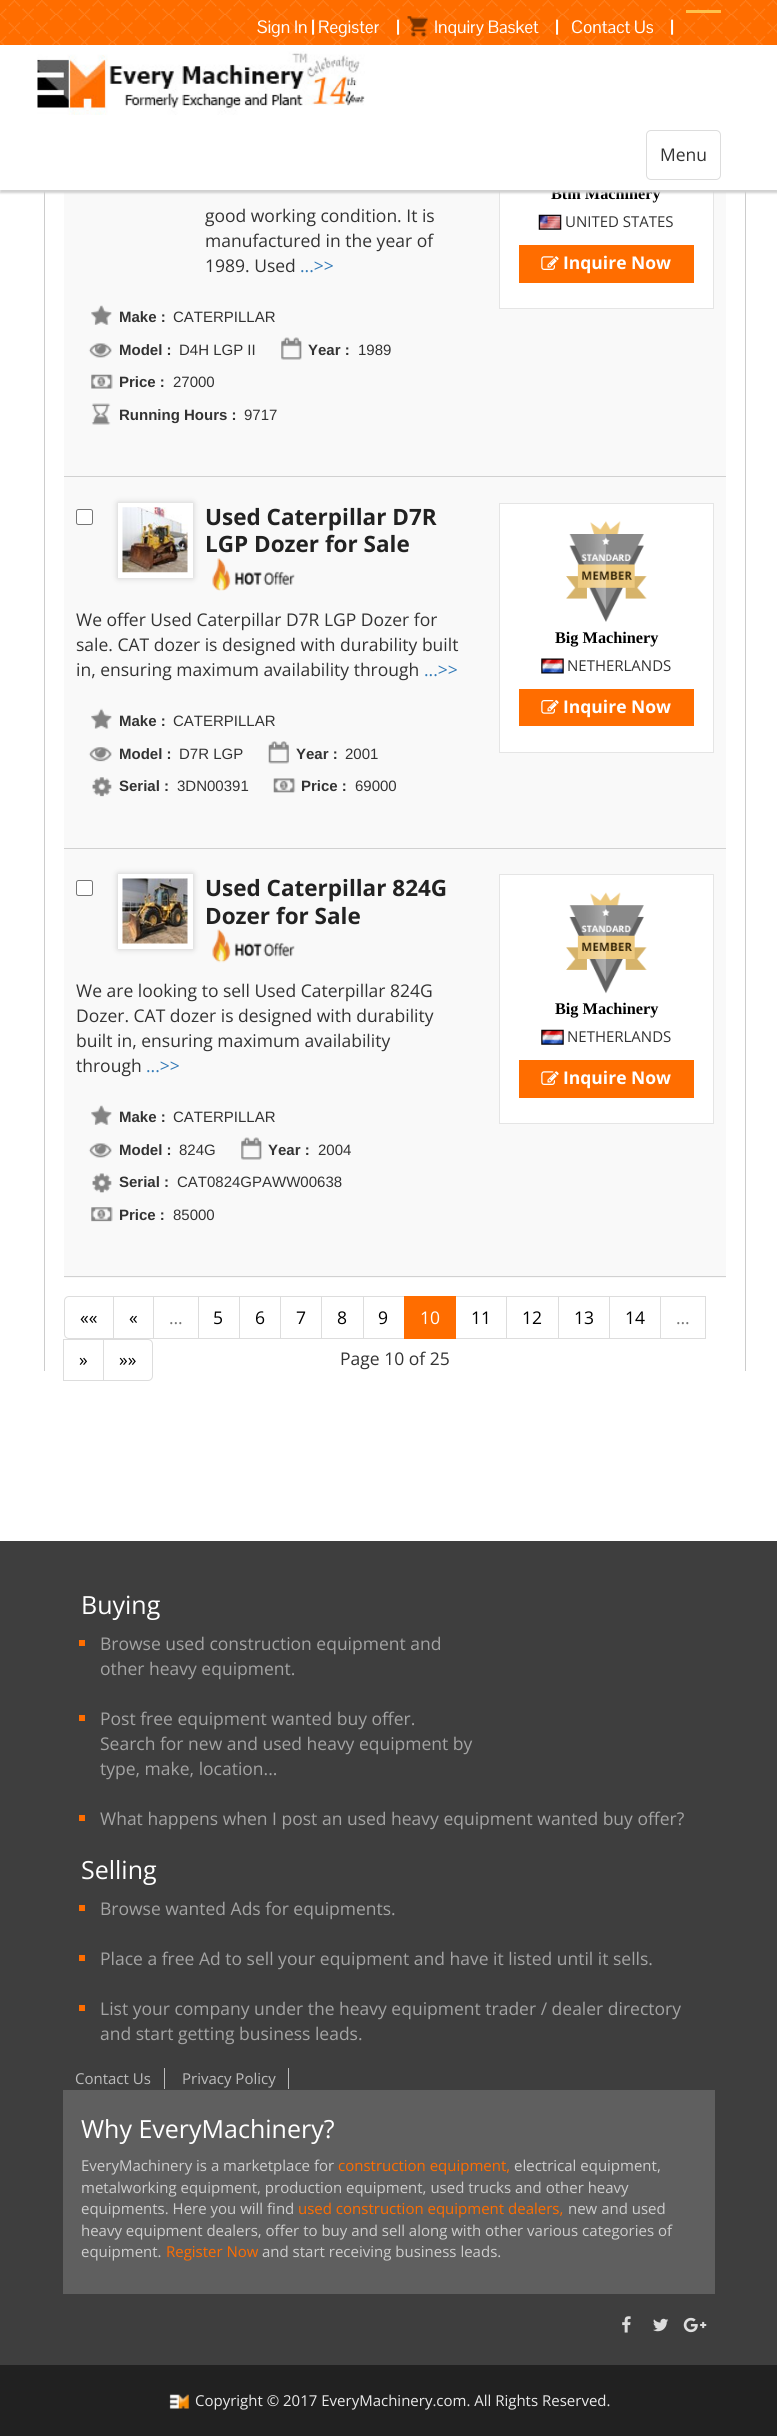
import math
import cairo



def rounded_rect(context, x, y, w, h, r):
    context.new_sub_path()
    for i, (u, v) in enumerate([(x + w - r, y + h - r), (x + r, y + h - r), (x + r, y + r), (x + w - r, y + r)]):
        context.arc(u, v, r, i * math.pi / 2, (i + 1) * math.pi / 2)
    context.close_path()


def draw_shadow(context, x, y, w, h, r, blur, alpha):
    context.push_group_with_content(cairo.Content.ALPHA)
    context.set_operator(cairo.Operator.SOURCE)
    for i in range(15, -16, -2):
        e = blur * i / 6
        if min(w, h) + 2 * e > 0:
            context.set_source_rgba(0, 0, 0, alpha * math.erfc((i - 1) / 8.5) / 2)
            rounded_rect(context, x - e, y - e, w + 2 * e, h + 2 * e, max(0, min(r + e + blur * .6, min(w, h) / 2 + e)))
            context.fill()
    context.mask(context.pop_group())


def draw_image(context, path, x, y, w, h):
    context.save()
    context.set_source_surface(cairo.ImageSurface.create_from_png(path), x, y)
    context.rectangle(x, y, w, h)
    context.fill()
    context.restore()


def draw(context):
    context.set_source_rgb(1, 1, 1)
    context.paint()
    context.set_source_rgb(1, 109 / 255, 0)
    context.rectangle(0, 0, 777, 45)
    context.fill()
    draw_image(context, "images/1.png", 0, 0, 777, 45)
    context.set_source_rgb(254 / 255, 194 / 255, 76 / 255)
    context.rectangle(686, 10, 35, 3)
    context.fill()
    draw_image(context, "images/2.png", 407, 16, 21, 21)
    context.set_source_rgb(204 / 255, 204 / 255, 204 / 255)
    context.rectangle(745, 191, 1, 1180)
    context.fill()
    context.rectangle(44, 191, 1, 1180)
    context.fill()
    context.set_source_rgb(249 / 255, 249 / 255, 249 / 255)
    context.rectangle(64, 191, 662, 657)
    context.fill()
    context.set_source_rgb(209 / 255, 209 / 255, 209 / 255)
    context.rectangle(64, 476, 662, 1)
    context.fill()
    draw_image(context, "images/4.png", 91, 305, 21, 20)
    draw_image(context, "images/5.png", 88, 343, 24, 15)
    draw_image(context, "images/6.png", 281, 337, 21, 23)
    draw_image(context, "images/7.png", 91, 374, 22, 15)
    draw_image(context, "images/8.png", 91, 403, 20, 22)
    context.set_source_rgb(1, 1, 1)
    context.rectangle(500, 191, 213, 117)
    context.fill()
    context.rectangle(499.5, 59.5, 214, 249)
    context.set_source_rgb(229 / 255, 229 / 255, 229 / 255)
    context.set_line_width(1)
    context.stroke()
    draw_image(context, "images/9.png", 538, 214, 24, 16)
    context.set_source_rgb(1, 109 / 255, 0)
    context.rectangle(519, 245, 175, 38)
    context.fill()
    draw_image(context, "images/10.png", 541, 256, 18, 14)
    context.set_source_rgb(209 / 255, 209 / 255, 209 / 255)
    context.rectangle(64, 848, 662, 1)
    context.fill()
    context.set_source_rgb(1, 1, 1)
    rounded_rect(context, 76.5, 509.5, 16, 15, 2)
    context.fill_preserve()
    context.set_source_rgb(118 / 255, 118 / 255, 118 / 255)
    context.stroke()
    context.set_source_rgb(201 / 255, 201 / 255, 201 / 255)
    draw_shadow(context, 118, 503, 75, 75, 0, 3, 1)
    context.set_source_rgb(1, 1, 1)
    context.rectangle(118, 503, 75, 75)
    context.fill()
    draw_image(context, "images/11.png", 122, 507, 66, 66)
    draw_image(context, "images/12.png", 212, 558, 83, 33)
    draw_image(context, "images/13.png", 91, 708, 21, 21)
    draw_image(context, "images/14.png", 88, 747, 24, 15)
    draw_image(context, "images/15.png", 268, 741, 21, 23)
    draw_image(context, "images/16.png", 92, 777, 20, 20)
    draw_image(context, "images/17.png", 273, 778, 23, 15)
    context.rectangle(499.5, 503.5, 214, 249)
    context.fill_preserve()
    context.set_source_rgb(229 / 255, 229 / 255, 229 / 255)
    context.stroke()
    draw_image(context, "images/18.png", 566, 521, 81, 101)
    draw_image(context, "images/19.png", 541, 658, 23, 16)
    context.set_source_rgb(1, 109 / 255, 0)
    context.rectangle(519, 689, 175, 37)
    context.fill()
    draw_image(context, "images/20.png", 541, 700, 18, 14)
    context.set_source_rgb(249 / 255, 249 / 255, 249 / 255)
    context.rectangle(64, 849, 662, 429)
    context.fill()
    context.set_source_rgb(209 / 255, 209 / 255, 209 / 255)
    context.rectangle(64, 1276, 662, 1)
    context.fill()
    context.set_source_rgb(1, 1, 1)
    rounded_rect(context, 76.5, 880.5, 16, 15, 2)
    context.fill_preserve()
    context.set_source_rgb(118 / 255, 118 / 255, 118 / 255)
    context.stroke()
    context.set_source_rgb(201 / 255, 201 / 255, 201 / 255)
    draw_shadow(context, 118, 874, 75, 75, 0, 3, 1)
    context.set_source_rgb(1, 1, 1)
    context.rectangle(118, 874, 75, 75)
    context.fill()
    draw_image(context, "images/21.png", 122, 878, 66, 66)
    draw_image(context, "images/22.png", 212, 929, 83, 34)
    draw_image(context, "images/23.png", 91, 1105, 21, 20)
    draw_image(context, "images/5.png", 88, 1143, 24, 15)
    draw_image(context, "images/24.png", 241, 1137, 21, 23)
    draw_image(context, "images/25.png", 92, 1173, 20, 20)
    draw_image(context, "images/26.png", 91, 1207, 22, 15)
    context.rectangle(499.5, 874.5, 214, 249)
    context.fill_preserve()
    context.set_source_rgb(229 / 255, 229 / 255, 229 / 255)
    context.stroke()
    draw_image(context, "images/27.png", 566, 892, 81, 102)
    draw_image(context, "images/28.png", 541, 1029, 23, 16)
    context.set_source_rgb(1, 109 / 255, 0)
    context.rectangle(519, 1060, 175, 38)
    context.fill()
    draw_image(context, "images/10.png", 541, 1071, 18, 14)
    context.new_path()
    context.move_to(69, 1296.5)
    context.line_to(113.5, 1296.5)
    context.line_to(113.5, 1338.5)
    context.line_to(69, 1338.5)
    context.curve_to(66.5, 1338.5, 64.5, 1336.5, 64.5, 1334)
    context.line_to(64.5, 1301)
    context.curve_to(64.5, 1298.5, 66.5, 1296.5, 69, 1296.5)
    context.close_path()
    context.set_source_rgb(221 / 255, 221 / 255, 221 / 255)
    context.stroke()
    context.rectangle(113.5, 1296.5, 40, 42)
    context.stroke()
    context.rectangle(153.5, 1296.5, 45, 42)
    context.stroke()
    context.rectangle(198.5, 1296.5, 41, 42)
    context.stroke()
    context.rectangle(239.5, 1296.5, 41, 42)
    context.stroke()
    context.rectangle(280.5, 1296.5, 42, 42)
    context.stroke()
    context.set_source_rgb(1, 1, 1)
    context.rectangle(322, 1297, 1, 41)
    context.fill()
    context.rectangle(321.5, 1296.5, 42, 42)
    context.set_source_rgb(221 / 255, 221 / 255, 221 / 255)
    context.stroke()
    context.rectangle(363.5, 1296.5, 41, 42)
    context.stroke()
    context.rectangle(455.5, 1296.5, 52, 42)
    context.stroke()
    context.set_source_rgb(1, 109 / 255, 0)
    context.rectangle(404, 1296, 52, 43)
    context.fill()
    context.set_source_rgb(1, 1, 1)
    context.rectangle(507, 1297, 1, 41)
    context.fill()
    context.rectangle(506.5, 1296.5, 52, 42)
    context.set_source_rgb(221 / 255, 221 / 255, 221 / 255)
    context.stroke()
    context.rectangle(558.5, 1296.5, 51, 42)
    context.stroke()
    context.rectangle(609.5, 1296.5, 51, 42)
    context.stroke()
    context.rectangle(660.5, 1296.5, 45, 42)
    context.stroke()
    context.rectangle(63.5, 1339.5, 40, 41)
    context.stroke()
    context.set_source_rgb(1, 1, 1)
    context.new_path()
    context.move_to(103.5, 1339.5)
    context.line_to(148, 1339.5)
    context.curve_to(150.5, 1339.5, 152.5, 1341.5, 152.5, 1344)
    context.line_to(152.5, 1376)
    context.curve_to(152.5, 1378.5, 150.5, 1380.5, 148, 1380.5)
    context.line_to(103.5, 1380.5)
    context.close_path()
    context.fill_preserve()
    context.set_source_rgb(221 / 255, 221 / 255, 221 / 255)
    context.stroke()
    context.set_source_rgb(62 / 255, 62 / 255, 62 / 255)
    context.rectangle(0, 1541, 777, 824)
    context.fill()
    context.set_source_rgb(1, 109 / 255, 0)
    context.rectangle(79, 1640, 6, 6)
    context.fill()
    context.rectangle(79, 1715, 6, 6)
    context.fill()
    context.rectangle(79, 1815, 6, 6)
    context.fill()
    context.rectangle(79, 1905, 6, 6)
    context.fill()
    context.rectangle(79, 1955, 6, 6)
    context.fill()
    context.rectangle(79, 2005, 6, 6)
    context.fill()
    context.set_source_rgb(189 / 255, 189 / 255, 189 / 255)
    context.rectangle(164, 2068, 1, 21)
    context.fill()
    context.rectangle(288, 2068, 1, 21)
    context.fill()
    context.set_source_rgb(95 / 255, 95 / 255, 95 / 255)
    context.rectangle(63, 2090, 652, 204)
    context.fill()
    draw_image(context, "images/29.png", 622, 2316, 9, 17)
    draw_image(context, "images/30.png", 653, 2318, 16, 14)
    draw_image(context, "images/31.png", 683, 2317, 24, 16)
    context.set_source_rgb(33 / 255, 33 / 255, 33 / 255)
    context.rectangle(0, 2365, 777, 71)
    context.fill()
    draw_image(context, "images/32.png", 169, 2394, 20, 15)
    context.select_font_face("Pontano Sans")
    context.set_font_size(17.5)
    context.set_source_rgb(1, 1, 1)
    context.move_to(257, 33)
    context.show_text("Sign In")
    context.select_font_face("Pontano Sans", cairo.FontSlant.NORMAL, cairo.FontWeight.BOLD)
    context.move_to(311, 33)
    context.show_text("|")
    context.select_font_face("Pontano Sans")
    context.move_to(318, 33)
    context.show_text("Register")
    context.select_font_face("Pontano Sans", cairo.FontSlant.NORMAL, cairo.FontWeight.BOLD)
    context.move_to(396, 33)
    context.show_text("|")
    context.select_font_face("Pontano Sans")
    context.move_to(434, 33)
    context.show_text("Inquiry Basket")
    context.select_font_face("Pontano Sans", cairo.FontSlant.NORMAL, cairo.FontWeight.BOLD)
    context.move_to(555, 33)
    context.show_text("|")
    context.select_font_face("Pontano Sans")
    context.move_to(571, 33)
    context.show_text("Contact Us")
    context.select_font_face("Pontano Sans", cairo.FontSlant.NORMAL, cairo.FontWeight.BOLD)
    context.move_to(670, 33)
    context.show_text("|")
    context.select_font_face("Open Sans")
    context.set_source_rgb(51 / 255, 51 / 255, 51 / 255)
    context.move_to(205, 222)
    context.show_text("good working condition. It is")
    context.move_to(205, 247)
    context.show_text("manufactured in the year of")
    context.move_to(205, 272)
    context.show_text("1989. Used")
    context.set_source_rgb(51 / 255, 122 / 255, 183 / 255)
    context.move_to(300, 272)
    context.show_text("...>>")
    context.select_font_face("Liberation Sans", cairo.FontSlant.NORMAL, cairo.FontWeight.BOLD)
    context.set_font_size(15)
    context.set_source_rgb(51 / 255, 51 / 255, 51 / 255)
    context.move_to(119, 322)
    context.show_text("Make :")
    context.select_font_face("Liberation Sans")
    context.move_to(173, 322)
    context.show_text("CATERPILLAR")
    context.select_font_face("Liberation Sans", cairo.FontSlant.NORMAL, cairo.FontWeight.BOLD)
    context.move_to(119, 355)
    context.show_text("Model :")
    context.select_font_face("Liberation Sans")
    context.move_to(179, 355)
    context.show_text("D4H LGP II")
    context.select_font_face("Liberation Sans", cairo.FontSlant.NORMAL, cairo.FontWeight.BOLD)
    context.move_to(308, 355)
    context.show_text("Year :")
    context.select_font_face("Liberation Sans")
    context.move_to(358, 355)
    context.show_text("1989")
    context.select_font_face("Liberation Sans", cairo.FontSlant.NORMAL, cairo.FontWeight.BOLD)
    context.move_to(119, 387)
    context.show_text("Price :")
    context.select_font_face("Liberation Sans")
    context.move_to(173, 387)
    context.show_text("27000")
    context.select_font_face("Liberation Sans", cairo.FontSlant.NORMAL, cairo.FontWeight.BOLD)
    context.move_to(119, 420)
    context.show_text("Running Hours :")
    context.select_font_face("Liberation Sans")
    context.move_to(244, 420)
    context.show_text("9717")
    context.select_font_face("Liberation Serif", cairo.FontSlant.NORMAL, cairo.FontWeight.BOLD)
    context.set_font_size(16.25)
    context.set_source_rgb(0, 0, 0)
    context.move_to(551, 199)
    context.show_text("Btm Machinery")
    context.set_source_rgb(1, 1, 1)
    context.rectangle(499, 59, 215, 131)
    context.fill()
    context.save()
    context.rectangle(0, 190, 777, 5)
    context.clip()
    context.set_source_rgb(209 / 255, 209 / 255, 209 / 255)
    draw_shadow(context, 0, 48, 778, 145, 0, 1, 1)
    context.restore()
    rounded_rect(context, 646.5, 130.5, 74, 49, 4.5)
    context.set_source_rgb(221 / 255, 221 / 255, 221 / 255)
    context.stroke()
    context.select_font_face("Open Sans")
    context.set_font_size(17.5)
    context.set_source_rgb(51 / 255, 51 / 255, 51 / 255)
    context.move_to(660, 161)
    context.show_text("Menu")
    draw_image(context, "images/3.png", 37, 51, 328, 64)
    context.set_font_size(15)
    context.move_to(565, 227)
    context.show_text("UNITED STATES")
    context.select_font_face("Open Sans", cairo.FontSlant.NORMAL, cairo.FontWeight.BOLD)
    context.set_font_size(17.5)
    context.set_source_rgb(1, 1, 1)
    context.move_to(563, 269)
    context.show_text("Inquire Now")
    context.set_font_size(22.5)
    context.set_source_rgb(34 / 255, 34 / 255, 34 / 255)
    context.move_to(205, 525)
    context.show_text("Used Caterpillar D7R")
    context.move_to(205, 552)
    context.show_text("LGP Dozer for Sale")
    context.select_font_face("Open Sans")
    context.set_font_size(17.5)
    context.set_source_rgb(51 / 255, 51 / 255, 51 / 255)
    context.move_to(76, 626)
    context.show_text("We offer Used Caterpillar D7R LGP Dozer for")
    context.move_to(76, 651)
    context.show_text("sale. CAT dozer is designed with durability built")
    context.move_to(76, 676)
    context.show_text("in, ensuring maximum availability through")
    context.set_source_rgb(51 / 255, 122 / 255, 183 / 255)
    context.move_to(424, 676)
    context.show_text("...>>")
    context.select_font_face("Liberation Sans", cairo.FontSlant.NORMAL, cairo.FontWeight.BOLD)
    context.set_font_size(15)
    context.set_source_rgb(51 / 255, 51 / 255, 51 / 255)
    context.move_to(119, 726)
    context.show_text("Make :")
    context.select_font_face("Liberation Sans")
    context.move_to(173, 726)
    context.show_text("CATERPILLAR")
    context.select_font_face("Liberation Sans", cairo.FontSlant.NORMAL, cairo.FontWeight.BOLD)
    context.move_to(119, 759)
    context.show_text("Model :")
    context.select_font_face("Liberation Sans")
    context.move_to(179, 759)
    context.show_text("D7R LGP")
    context.select_font_face("Liberation Sans", cairo.FontSlant.NORMAL, cairo.FontWeight.BOLD)
    context.move_to(296, 759)
    context.show_text("Year :")
    context.select_font_face("Liberation Sans")
    context.move_to(345, 759)
    context.show_text("2001")
    context.select_font_face("Liberation Sans", cairo.FontSlant.NORMAL, cairo.FontWeight.BOLD)
    context.move_to(119, 791)
    context.show_text("Serial :")
    context.select_font_face("Liberation Sans")
    context.move_to(177, 791)
    context.show_text("3DN00391")
    context.select_font_face("Liberation Sans", cairo.FontSlant.NORMAL, cairo.FontWeight.BOLD)
    context.move_to(301, 791)
    context.show_text("Price :")
    context.select_font_face("Liberation Sans")
    context.move_to(355, 791)
    context.show_text("69000")
    context.select_font_face("Liberation Serif", cairo.FontSlant.NORMAL, cairo.FontWeight.BOLD)
    context.set_font_size(16.25)
    context.set_source_rgb(0, 0, 0)
    context.move_to(555, 643)
    context.show_text("Big Machinery")
    context.select_font_face("Open Sans")
    context.set_font_size(15)
    context.set_source_rgb(51 / 255, 51 / 255, 51 / 255)
    context.move_to(567, 671)
    context.show_text("NETHERLANDS")
    context.select_font_face("Open Sans", cairo.FontSlant.NORMAL, cairo.FontWeight.BOLD)
    context.set_font_size(17.5)
    context.set_source_rgb(1, 1, 1)
    context.move_to(563, 713)
    context.show_text("Inquire Now")
    context.set_font_size(22.5)
    context.set_source_rgb(34 / 255, 34 / 255, 34 / 255)
    context.move_to(205, 896)
    context.show_text("Used Caterpillar 824G")
    context.move_to(205, 924)
    context.show_text("Dozer for Sale")
    context.select_font_face("Open Sans")
    context.set_font_size(17.5)
    context.set_source_rgb(51 / 255, 51 / 255, 51 / 255)
    context.move_to(76, 997)
    context.show_text("We are looking to sell Used Caterpillar 824G")
    context.move_to(76, 1022)
    context.show_text("Dozer. CAT dozer is designed with durability")
    context.move_to(76, 1047)
    context.show_text("built in, ensuring maximum availability")
    context.move_to(76, 1072)
    context.show_text("through")
    context.set_source_rgb(51 / 255, 122 / 255, 183 / 255)
    context.move_to(146, 1072)
    context.show_text("...>>")
    context.select_font_face("Liberation Sans", cairo.FontSlant.NORMAL, cairo.FontWeight.BOLD)
    context.set_font_size(15)
    context.set_source_rgb(51 / 255, 51 / 255, 51 / 255)
    context.move_to(119, 1122)
    context.show_text("Make :")
    context.select_font_face("Liberation Sans")
    context.move_to(173, 1122)
    context.show_text("CATERPILLAR")
    context.select_font_face("Liberation Sans", cairo.FontSlant.NORMAL, cairo.FontWeight.BOLD)
    context.move_to(119, 1155)
    context.show_text("Model :")
    context.select_font_face("Liberation Sans")
    context.move_to(179, 1155)
    context.show_text("824G")
    context.select_font_face("Liberation Sans", cairo.FontSlant.NORMAL, cairo.FontWeight.BOLD)
    context.move_to(268, 1155)
    context.show_text("Year :")
    context.select_font_face("Liberation Sans")
    context.move_to(318, 1155)
    context.show_text("2004")
    context.select_font_face("Liberation Sans", cairo.FontSlant.NORMAL, cairo.FontWeight.BOLD)
    context.move_to(119, 1187)
    context.show_text("Serial :")
    context.select_font_face("Liberation Sans")
    context.move_to(177, 1187)
    context.show_text("CAT0824GPAWW00638")
    context.select_font_face("Liberation Sans", cairo.FontSlant.NORMAL, cairo.FontWeight.BOLD)
    context.move_to(119, 1220)
    context.show_text("Price :")
    context.select_font_face("Liberation Sans")
    context.move_to(173, 1220)
    context.show_text("85000")
    context.select_font_face("Liberation Serif", cairo.FontSlant.NORMAL, cairo.FontWeight.BOLD)
    context.set_font_size(16.25)
    context.set_source_rgb(0, 0, 0)
    context.move_to(555, 1014)
    context.show_text("Big Machinery")
    context.select_font_face("Open Sans")
    context.set_font_size(15)
    context.set_source_rgb(51 / 255, 51 / 255, 51 / 255)
    context.move_to(567, 1042)
    context.show_text("NETHERLANDS")
    context.select_font_face("Open Sans", cairo.FontSlant.NORMAL, cairo.FontWeight.BOLD)
    context.set_font_size(17.5)
    context.set_source_rgb(1, 1, 1)
    context.move_to(563, 1084)
    context.show_text("Inquire Now")
    context.select_font_face("Open Sans")
    context.set_source_rgb(0, 0, 0)
    context.move_to(80, 1324)
    context.show_text("««")
    context.move_to(129, 1324)
    context.show_text("«")
    context.move_to(213, 1324)
    context.show_text("5")
    context.move_to(255, 1324)
    context.show_text("6")
    context.move_to(296, 1324)
    context.show_text("7")
    context.move_to(337, 1324)
    context.show_text("8")
    context.move_to(378, 1324)
    context.show_text("9")
    context.set_source_rgb(1, 1, 1)
    context.move_to(420, 1324)
    context.show_text("10")
    context.set_source_rgb(0, 0, 0)
    context.move_to(471, 1324)
    context.show_text("11")
    context.move_to(522, 1324)
    context.show_text("12")
    context.move_to(574, 1324)
    context.show_text("13")
    context.move_to(625, 1324)
    context.show_text("14")
    context.set_source_rgb(119 / 255, 119 / 255, 119 / 255)
    context.move_to(169, 1324)
    context.show_text("…")
    context.move_to(676, 1324)
    context.show_text("…")
    context.set_source_rgb(0, 0, 0)
    context.move_to(79, 1366)
    context.show_text("»")
    context.move_to(119, 1366)
    context.show_text("»»")
    context.set_source_rgb(51 / 255, 51 / 255, 51 / 255)
    context.move_to(340, 1365)
    context.show_text("Page 10 of 25")
    context.set_font_size(25)
    context.set_source_rgb(1, 1, 1)
    context.move_to(81, 1614)
    context.show_text("Buying")
    context.set_font_size(17.5)
    context.set_source_rgb(164 / 255, 164 / 255, 164 / 255)
    context.move_to(100, 1650)
    context.show_text("Browse used construction equipment and")
    context.move_to(100, 1675)
    context.show_text("other heavy equipment.")
    context.move_to(100, 1725)
    context.show_text("Post free equipment wanted buy offer.")
    context.move_to(100, 1750)
    context.show_text("Search for new and used heavy equipment by")
    context.move_to(100, 1775)
    context.show_text("type, make, location...")
    context.move_to(100, 1825)
    context.show_text("What happens when I post an used heavy equipment wanted buy offer?")
    context.set_font_size(25)
    context.set_source_rgb(1, 1, 1)
    context.move_to(81, 1879)
    context.show_text("Selling")
    context.set_font_size(17.5)
    context.set_source_rgb(164 / 255, 164 / 255, 164 / 255)
    context.move_to(100, 1915)
    context.show_text("Browse wanted Ads for equipments.")
    context.move_to(100, 1965)
    context.show_text("Place a free Ad to sell your equipment and have it listed until it sells.")
    context.move_to(100, 2015)
    context.show_text("List your company under the heavy equipment trader / dealer directory")
    context.move_to(100, 2040)
    context.show_text("and start getting business leads.")
    context.set_font_size(15)
    context.set_source_rgb(189 / 255, 189 / 255, 189 / 255)
    context.move_to(75, 2084)
    context.show_text("Contact Us")
    context.move_to(182, 2084)
    context.show_text("Privacy Policy")
    context.set_font_size(25)
    context.set_source_rgb(1, 1, 1)
    context.move_to(81, 2138)
    context.show_text("Why EveryMachinery?")
    context.set_font_size(15)
    context.set_source_rgb(206 / 255, 206 / 255, 206 / 255)
    context.move_to(81, 2171)
    context.show_text("EveryMachinery is a marketplace for")
    context.set_source_rgb(1, 109 / 255, 0)
    context.move_to(338, 2171)
    context.show_text("construction equipment,")
    context.set_source_rgb(206 / 255, 206 / 255, 206 / 255)
    context.move_to(514, 2171)
    context.show_text("electrical equipment,")
    context.move_to(81, 2193)
    context.show_text("metalworking equipment, production equipment, used trucks and other heavy")
    context.move_to(81, 2214)
    context.show_text("equipments. Here you will find")
    context.set_source_rgb(1, 109 / 255, 0)
    context.move_to(298, 2214)
    context.show_text("used construction equipment dealers,")
    context.set_source_rgb(206 / 255, 206 / 255, 206 / 255)
    context.move_to(568, 2214)
    context.show_text("new and used")
    context.move_to(81, 2236)
    context.show_text("heavy equipment dealers, offer to buy and sell along with other various categories of")
    context.move_to(81, 2257)
    context.show_text("equipment.")
    context.set_source_rgb(1, 109 / 255, 0)
    context.move_to(166, 2257)
    context.show_text("Register Now")
    context.set_source_rgb(206 / 255, 206 / 255, 206 / 255)
    context.move_to(262, 2257)
    context.show_text("and start receiving business leads.")
    context.set_source_rgb(234 / 255, 234 / 255, 234 / 255)
    context.move_to(195, 2406)
    context.show_text("Copyright © 2017 EveryMachinery.com. All Rights Reserved.")


surface = cairo.ImageSurface(cairo.Format.RGB24, 777, 2436)
context = cairo.Context(surface)
options = cairo.FontOptions()
options.set_hint_metrics(cairo.HintMetrics.OFF)
options.set_hint_style(cairo.HintStyle.NONE)
context.set_font_options(options)
context.set_miter_limit(4)
draw(context)
surface.write_to_png("out.png")
